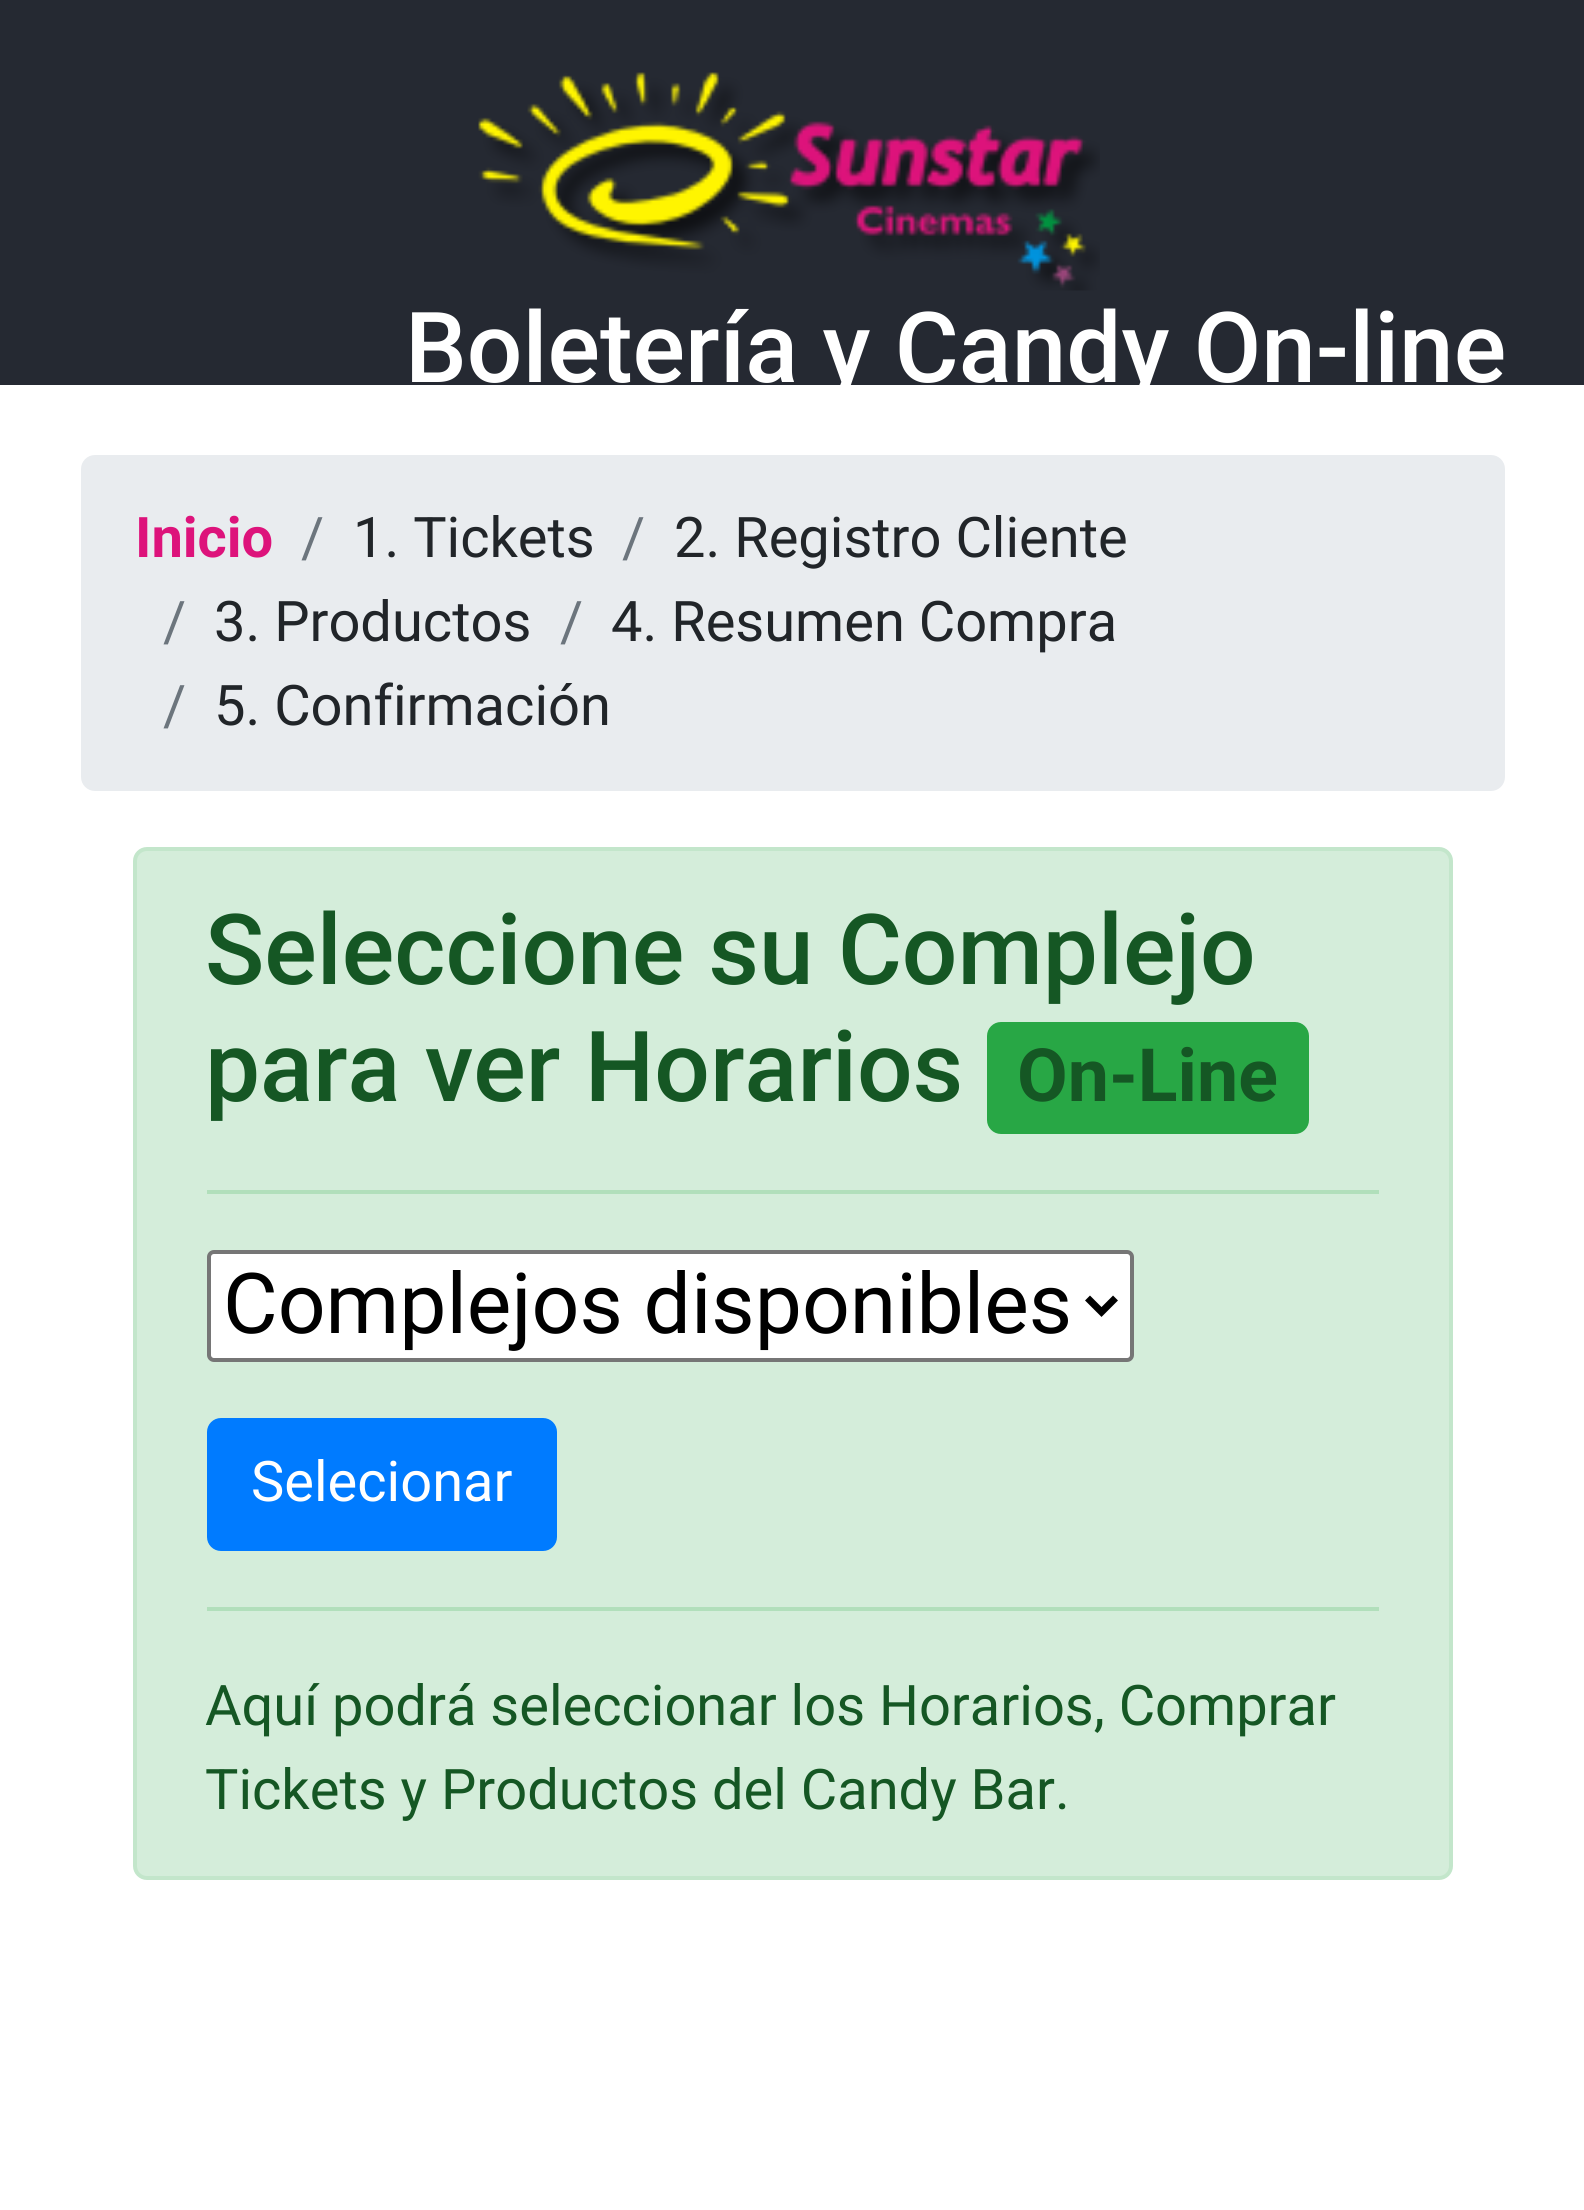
import math
import cairo



def rounded_rect(context, x, y, w, h, r):
    context.new_sub_path()
    for i, (u, v) in enumerate([(x + w - r, y + h - r), (x + r, y + h - r), (x + r, y + r), (x + w - r, y + r)]):
        context.arc(u, v, r, i * math.pi / 2, (i + 1) * math.pi / 2)
    context.close_path()


def draw_image(context, path, x, y, w, h):
    context.save()
    context.set_source_surface(cairo.ImageSurface.create_from_png(path), x, y)
    context.rectangle(x, y, w, h)
    context.fill()
    context.restore()


def draw(context):
    context.set_source_rgb(1, 1, 1)
    context.paint()
    context.set_source_rgb(37 / 255, 41 / 255, 50 / 255)
    context.rectangle(0, 0, 1584, 385)
    context.fill()
    draw_image(context, "images/1.png", 478, 72, 622, 219)
    context.set_source_rgb(233 / 255, 236 / 255, 239 / 255)
    rounded_rect(context, 81, 455, 1424, 336, 14)
    context.fill()
    context.set_source_rgb(212 / 255, 237 / 255, 218 / 255)
    rounded_rect(context, 135, 849, 1316, 1029, 12)
    context.fill_preserve()
    context.set_source_rgb(195 / 255, 230 / 255, 203 / 255)
    context.set_line_width(4)
    context.stroke()
    context.set_source_rgb(40 / 255, 167 / 255, 69 / 255)
    rounded_rect(context, 987, 1022, 322, 112, 14)
    context.fill()
    context.set_source_rgb(177 / 255, 223 / 255, 187 / 255)
    context.rectangle(207, 1190, 1172, 4)
    context.fill()
    context.set_source_rgb(1, 1, 1)
    rounded_rect(context, 209, 1252, 923, 108, 5)
    context.fill_preserve()
    context.set_source_rgb(118 / 255, 118 / 255, 118 / 255)
    context.stroke()
    context.new_path()
    context.move_to(1087.5, 1298)
    context.line_to(1101.5, 1312)
    context.line_to(1115.5, 1298)
    context.set_source_rgb(0, 0, 0)
    context.set_line_width(7)
    context.stroke()
    context.set_source_rgb(0, 123 / 255, 1)
    rounded_rect(context, 209, 1420, 346, 129, 12)
    context.fill_preserve()
    context.set_line_width(4)
    context.stroke()
    context.set_source_rgb(177 / 255, 223 / 255, 187 / 255)
    context.rectangle(207, 1607, 1172, 4)
    context.fill()
    context.save()
    context.rectangle(81, 70, 1424, 315)
    context.clip()
    context.select_font_face("Roboto Medium")
    context.set_font_size(98)
    context.set_source_rgb(1, 1, 1)
    context.move_to(405, 382)
    context.show_text("Boletería y Candy On-line")
    context.restore()
    context.select_font_face("Roboto", cairo.FontSlant.NORMAL, cairo.FontWeight.BOLD)
    context.set_font_size(56)
    context.set_source_rgb(221 / 255, 19 / 255, 123 / 255)
    context.move_to(135, 557)
    context.show_text("Inicio")
    context.select_font_face("Roboto")
    context.set_source_rgb(108 / 255, 117 / 255, 125 / 255)
    context.move_to(301, 557)
    context.show_text("/")
    context.set_source_rgb(33 / 255, 37 / 255, 41 / 255)
    context.move_to(353, 557)
    context.show_text("1. Tickets")
    context.set_source_rgb(108 / 255, 117 / 255, 125 / 255)
    context.move_to(622, 557)
    context.show_text("/")
    context.set_source_rgb(33 / 255, 37 / 255, 41 / 255)
    context.move_to(674, 557)
    context.show_text("2. Registro Cliente")
    context.set_source_rgb(108 / 255, 117 / 255, 125 / 255)
    context.move_to(163, 641)
    context.show_text("/")
    context.set_source_rgb(33 / 255, 37 / 255, 41 / 255)
    context.move_to(214, 641)
    context.show_text("3. Productos")
    context.set_source_rgb(108 / 255, 117 / 255, 125 / 255)
    context.move_to(560, 641)
    context.show_text("/")
    context.set_source_rgb(33 / 255, 37 / 255, 41 / 255)
    context.move_to(611, 641)
    context.show_text("4. Resumen Compra")
    context.set_source_rgb(108 / 255, 117 / 255, 125 / 255)
    context.move_to(163, 725)
    context.show_text("/")
    context.set_source_rgb(33 / 255, 37 / 255, 41 / 255)
    context.move_to(214, 725)
    context.show_text("5. Confirmación")
    context.select_font_face("Roboto Medium")
    context.set_font_size(98)
    context.set_source_rgb(21 / 255, 87 / 255, 36 / 255)
    context.move_to(205, 984)
    context.show_text("Seleccione su Complejo")
    context.move_to(205, 1101)
    context.show_text("para ver Horarios")
    context.select_font_face("Roboto", cairo.FontSlant.NORMAL, cairo.FontWeight.BOLD)
    context.set_font_size(73.5)
    context.move_to(1017, 1101)
    context.show_text("On-Line")
    context.select_font_face("Roboto")
    context.set_font_size(84)
    context.set_source_rgb(0, 0, 0)
    context.move_to(223, 1333)
    context.show_text("Complejos disponibles")
    context.set_font_size(56)
    context.set_source_rgb(1, 1, 1)
    context.move_to(251, 1501)
    context.show_text("Selecionar")
    context.set_source_rgb(21 / 255, 87 / 255, 36 / 255)
    context.move_to(205, 1725)
    context.show_text("Aquí podrá seleccionar los Horarios, Comprar")
    context.move_to(205, 1809)
    context.show_text("Tickets y Productos del Candy Bar.")


surface = cairo.ImageSurface(cairo.Format.RGB24, 1584, 2210)
context = cairo.Context(surface)
options = cairo.FontOptions()
options.set_hint_metrics(cairo.HintMetrics.OFF)
options.set_hint_style(cairo.HintStyle.NONE)
context.set_font_options(options)
context.set_miter_limit(4)
draw(context)
surface.write_to_png("out.png")
